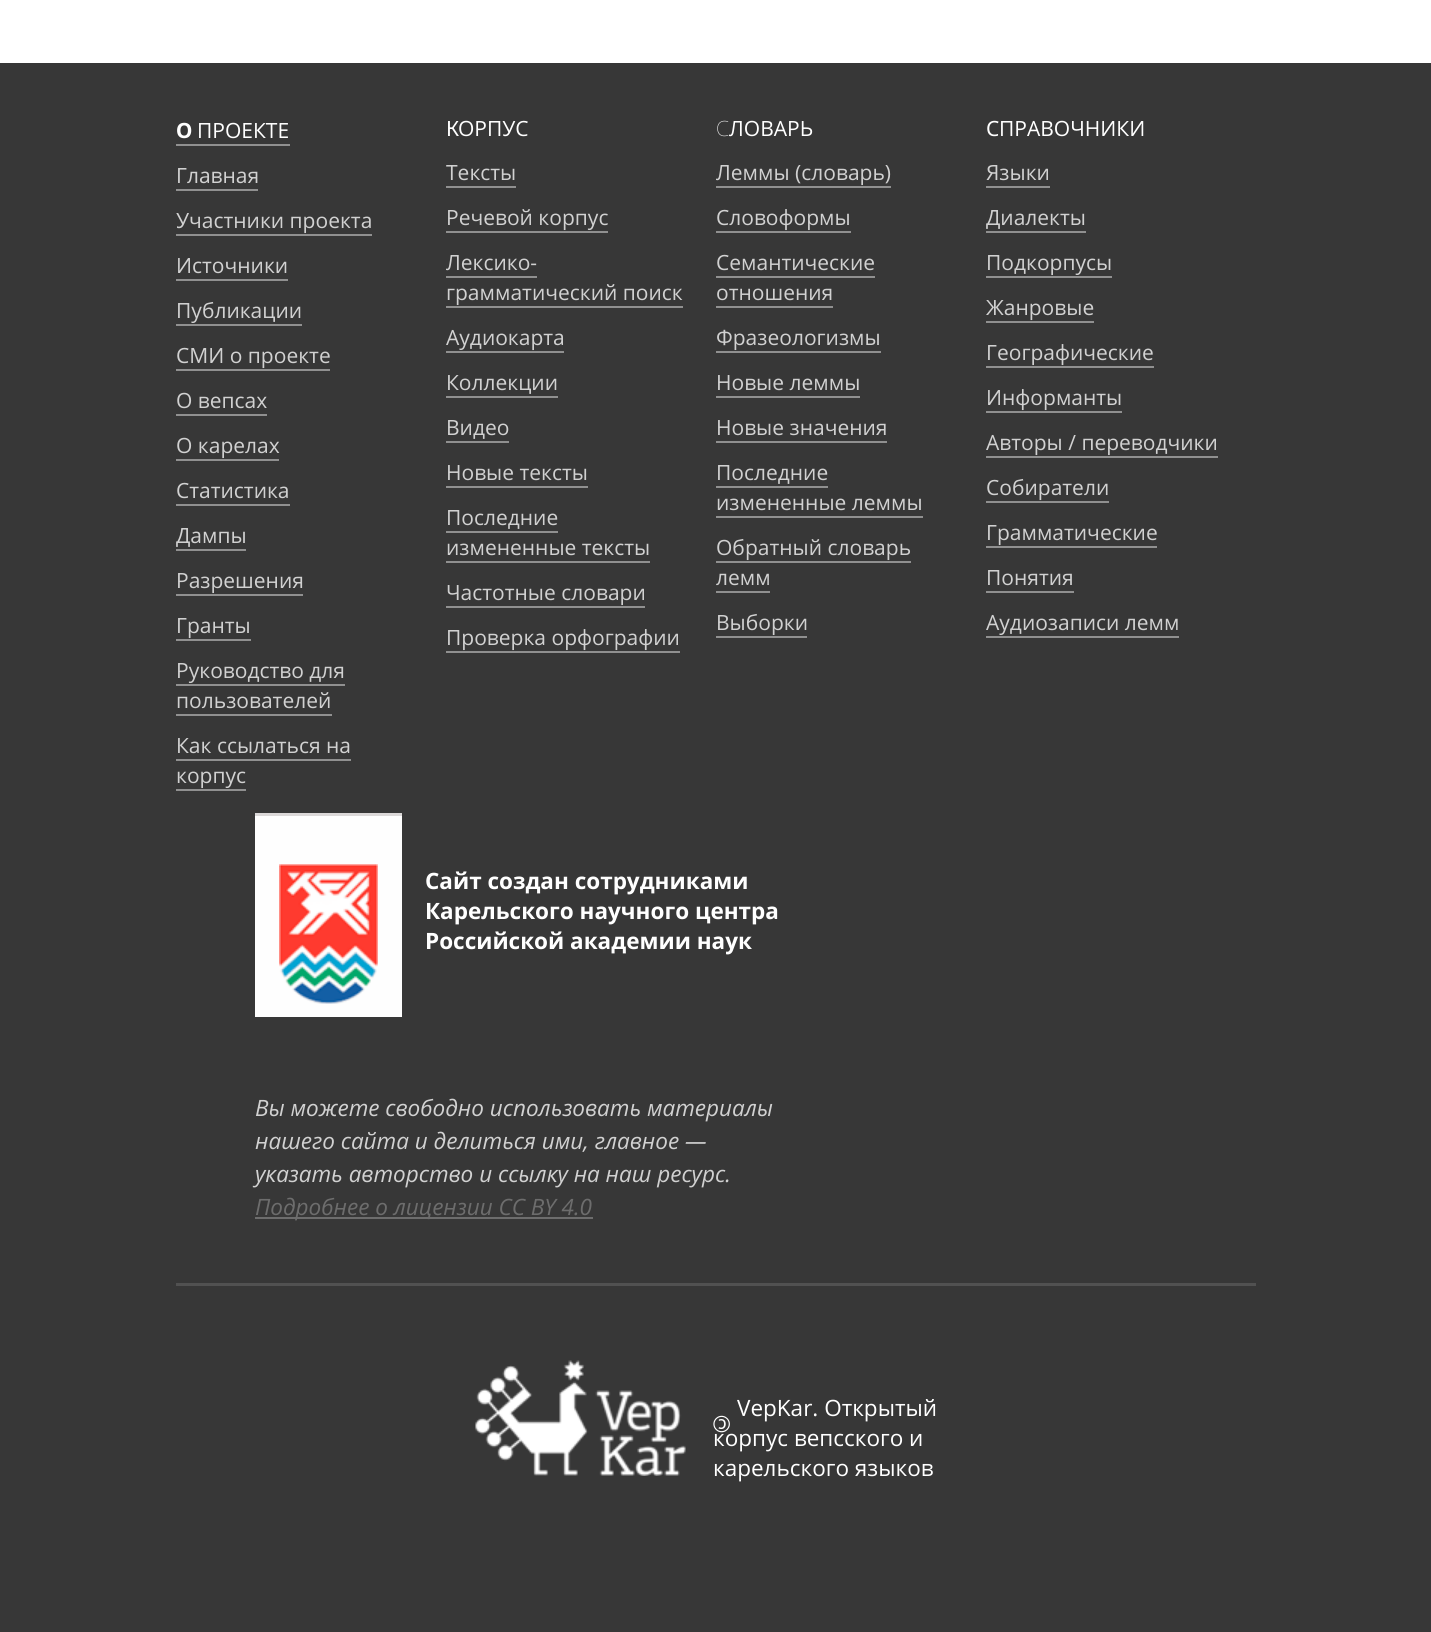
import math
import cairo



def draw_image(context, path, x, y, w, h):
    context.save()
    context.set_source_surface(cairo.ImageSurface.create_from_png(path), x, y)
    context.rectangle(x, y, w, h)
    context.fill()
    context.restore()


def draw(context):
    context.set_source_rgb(1, 1, 1)
    context.paint()
    context.set_source_rgb(55 / 255, 55 / 255, 55 / 255)
    context.rectangle(0, 63, 1431, 1569)
    context.fill()
    context.set_source_rgb(144 / 255, 144 / 255, 144 / 255)
    context.rectangle(176, 144, 114, 2)
    context.fill()
    context.rectangle(176, 189, 82, 2)
    context.fill()
    context.rectangle(176, 234, 196, 2)
    context.fill()
    context.rectangle(176, 279, 112, 2)
    context.fill()
    context.rectangle(176, 324, 126, 2)
    context.fill()
    context.rectangle(176, 369, 154, 2)
    context.fill()
    context.rectangle(176, 414, 91, 2)
    context.fill()
    context.rectangle(176, 459, 103, 2)
    context.fill()
    context.rectangle(176, 504, 114, 2)
    context.fill()
    context.rectangle(176, 549, 70, 2)
    context.fill()
    context.rectangle(176, 594, 127, 2)
    context.fill()
    context.rectangle(176, 639, 75, 2)
    context.fill()
    context.rectangle(176, 684, 169, 2)
    context.fill()
    context.rectangle(176, 714, 156, 2)
    context.fill()
    context.rectangle(176, 759, 175, 2)
    context.fill()
    context.rectangle(176, 789, 70, 2)
    context.fill()
    context.rectangle(446, 186, 70, 2)
    context.fill()
    context.rectangle(446, 231, 162, 2)
    context.fill()
    context.rectangle(446, 276, 91, 2)
    context.fill()
    context.rectangle(446, 306, 237, 2)
    context.fill()
    context.rectangle(446, 351, 118, 2)
    context.fill()
    context.rectangle(446, 396, 112, 2)
    context.fill()
    context.rectangle(446, 441, 63, 2)
    context.fill()
    context.rectangle(446, 486, 142, 2)
    context.fill()
    context.rectangle(446, 531, 112, 2)
    context.fill()
    context.rectangle(446, 561, 204, 2)
    context.fill()
    context.rectangle(446, 606, 199, 2)
    context.fill()
    context.rectangle(446, 651, 234, 2)
    context.fill()
    context.rectangle(716, 186, 175, 2)
    context.fill()
    context.rectangle(716, 231, 135, 2)
    context.fill()
    context.rectangle(716, 276, 159, 2)
    context.fill()
    context.rectangle(716, 306, 117, 2)
    context.fill()
    context.rectangle(716, 351, 165, 2)
    context.fill()
    context.rectangle(716, 396, 144, 2)
    context.fill()
    context.rectangle(716, 441, 171, 2)
    context.fill()
    context.rectangle(716, 486, 112, 2)
    context.fill()
    context.rectangle(716, 516, 207, 2)
    context.fill()
    context.rectangle(716, 561, 195, 2)
    context.fill()
    context.rectangle(716, 591, 54, 2)
    context.fill()
    context.rectangle(716, 636, 91, 2)
    context.fill()
    context.rectangle(986, 186, 64, 2)
    context.fill()
    context.rectangle(986, 231, 100, 2)
    context.fill()
    context.rectangle(986, 276, 126, 2)
    context.fill()
    context.rectangle(986, 321, 108, 2)
    context.fill()
    context.rectangle(986, 366, 168, 2)
    context.fill()
    context.rectangle(986, 411, 136, 2)
    context.fill()
    context.rectangle(986, 456, 232, 2)
    context.fill()
    context.rectangle(986, 501, 123, 2)
    context.fill()
    context.rectangle(986, 546, 171, 2)
    context.fill()
    context.rectangle(986, 591, 88, 2)
    context.fill()
    context.rectangle(986, 636, 193, 2)
    context.fill()
    context.set_source_rgb(254 / 255, 254 / 255, 254 / 255)
    context.rectangle(255, 816, 147, 201)
    context.fill()
    draw_image(context, "images/1.png", 279, 864, 99, 140)
    context.set_source_rgb(219 / 255, 216 / 255, 216 / 255)
    context.rectangle(255, 813, 147, 3)
    context.fill()
    context.set_source_rgb(109 / 255, 109 / 255, 109 / 255)
    context.rectangle(255, 1217, 338, 2)
    context.fill()
    context.set_source_rgb(81 / 255, 81 / 255, 81 / 255)
    context.rectangle(176, 1283, 1080, 3)
    context.fill()
    draw_image(context, "images/2.png", 475, 1360, 211, 116)
    context.select_font_face("Noto Sans", cairo.FontSlant.NORMAL, cairo.FontWeight.BOLD)
    context.set_font_size(21)
    context.set_source_rgb(1, 1, 1)
    context.move_to(176, 138)
    context.show_text("О")
    context.select_font_face("Open Sans")
    context.move_to(197, 138)
    context.show_text("ПРОЕКТЕ")
    context.set_source_rgb(209 / 255, 209 / 255, 209 / 255)
    context.move_to(176, 183)
    context.show_text("Главная")
    context.move_to(176, 228)
    context.show_text("Участники проекта")
    context.move_to(176, 273)
    context.show_text("Источники")
    context.move_to(176, 318)
    context.show_text("Публикации")
    context.move_to(176, 363)
    context.show_text("СМИ о проекте")
    context.move_to(176, 408)
    context.show_text("О вепсах")
    context.move_to(176, 453)
    context.show_text("О карелах")
    context.move_to(176, 498)
    context.show_text("Статистика")
    context.move_to(176, 543)
    context.show_text("Дампы")
    context.move_to(176, 588)
    context.show_text("Разрешения")
    context.move_to(176, 633)
    context.show_text("Гранты")
    context.move_to(176, 678)
    context.show_text("Руководство для")
    context.move_to(176, 708)
    context.show_text("пользователей")
    context.move_to(176, 753)
    context.show_text("Как ссылаться на")
    context.move_to(176, 783)
    context.show_text("корпус")
    context.select_font_face("Noto Sans")
    context.set_source_rgb(1, 1, 1)
    context.move_to(446, 136)
    context.show_text("К")
    context.select_font_face("Open Sans")
    context.move_to(458, 136)
    context.show_text("ОРПУС")
    context.set_source_rgb(209 / 255, 209 / 255, 209 / 255)
    context.move_to(446, 180)
    context.show_text("Тексты")
    context.move_to(446, 225)
    context.show_text("Речевой корпус")
    context.move_to(446, 270)
    context.show_text("Лексико-")
    context.move_to(446, 300)
    context.show_text("грамматический поиск")
    context.move_to(446, 345)
    context.show_text("Аудиокарта")
    context.move_to(446, 390)
    context.show_text("Коллекции")
    context.move_to(446, 435)
    context.show_text("Видео")
    context.move_to(446, 480)
    context.show_text("Новые тексты")
    context.move_to(446, 525)
    context.show_text("Последние")
    context.move_to(446, 555)
    context.show_text("измененные тексты")
    context.move_to(446, 600)
    context.show_text("Частотные словари")
    context.move_to(446, 645)
    context.show_text("Проверка орфографии")
    context.select_font_face("Noto Sans Thin")
    context.set_source_rgb(1, 1, 1)
    context.move_to(716, 136)
    context.show_text("С")
    context.select_font_face("Open Sans")
    context.move_to(729, 136)
    context.show_text("ЛОВАРЬ")
    context.set_source_rgb(209 / 255, 209 / 255, 209 / 255)
    context.move_to(716, 180)
    context.show_text("Леммы (словарь)")
    context.move_to(716, 225)
    context.show_text("Словоформы")
    context.move_to(716, 270)
    context.show_text("Семантические")
    context.move_to(716, 300)
    context.show_text("отношения")
    context.move_to(716, 345)
    context.show_text("Фразеологизмы")
    context.move_to(716, 390)
    context.show_text("Новые леммы")
    context.move_to(716, 435)
    context.show_text("Новые значения")
    context.move_to(716, 480)
    context.show_text("Последние")
    context.move_to(716, 510)
    context.show_text("измененные леммы")
    context.move_to(716, 555)
    context.show_text("Обратный словарь")
    context.move_to(716, 585)
    context.show_text("лемм")
    context.move_to(716, 630)
    context.show_text("Выборки")
    context.select_font_face("Noto Sans")
    context.set_source_rgb(1, 1, 1)
    context.move_to(986, 136)
    context.show_text("C")
    context.select_font_face("Open Sans")
    context.move_to(999, 136)
    context.show_text("ПРАВОЧНИКИ")
    context.set_source_rgb(209 / 255, 209 / 255, 209 / 255)
    context.move_to(986, 180)
    context.show_text("Языки")
    context.move_to(986, 225)
    context.show_text("Диалекты")
    context.move_to(986, 270)
    context.show_text("Подкорпусы")
    context.move_to(986, 315)
    context.show_text("Жанровые")
    context.move_to(986, 360)
    context.show_text("Географические")
    context.move_to(986, 405)
    context.show_text("Информанты")
    context.move_to(986, 450)
    context.show_text("Авторы / переводчики")
    context.move_to(986, 495)
    context.show_text("Собиратели")
    context.move_to(986, 540)
    context.show_text("Грамматические")
    context.move_to(986, 585)
    context.show_text("Понятия")
    context.move_to(986, 630)
    context.show_text("Аудиозаписи лемм")
    context.select_font_face("Open Sans", cairo.FontSlant.NORMAL, cairo.FontWeight.BOLD)
    context.set_font_size(22.5)
    context.set_source_rgb(1, 1, 1)
    context.move_to(425, 889)
    context.show_text("Сайт создан сотрудниками")
    context.move_to(425, 919)
    context.show_text("Карельского научного центра")
    context.move_to(425, 949)
    context.show_text("Российской академии наук")
    context.select_font_face("Open Sans", cairo.FontSlant.ITALIC)
    context.set_source_rgb(209 / 255, 209 / 255, 209 / 255)
    context.move_to(255, 1116)
    context.show_text("Вы можете свободно использовать материалы")
    context.move_to(255, 1149)
    context.show_text("нашего сайта и делиться ими, главное —")
    context.move_to(255, 1182)
    context.show_text("указать авторство и ссылку на наш ресурс.")
    context.set_source_rgb(109 / 255, 109 / 255, 109 / 255)
    context.move_to(255, 1215)
    context.show_text("Подробнее о лицензии CC BY 4.0")
    context.select_font_face("Open Sans")
    context.set_source_rgb(1, 1, 1)
    context.move_to(737, 1416)
    context.show_text("VepKar. Открытый")
    context.save()
    context.translate(731, 1416)
    context.rotate(180 * math.pi / 180)
    context.move_to(0, 0)
    context.show_text("©")
    context.restore()
    context.move_to(713, 1446)
    context.show_text("корпус вепсского и")
    context.move_to(713, 1476)
    context.show_text("карельского языков")


surface = cairo.ImageSurface(cairo.Format.RGB24, 1431, 1632)
context = cairo.Context(surface)
options = cairo.FontOptions()
options.set_hint_metrics(cairo.HintMetrics.OFF)
options.set_hint_style(cairo.HintStyle.NONE)
context.set_font_options(options)
context.set_miter_limit(4)
draw(context)
surface.write_to_png("out.png")
